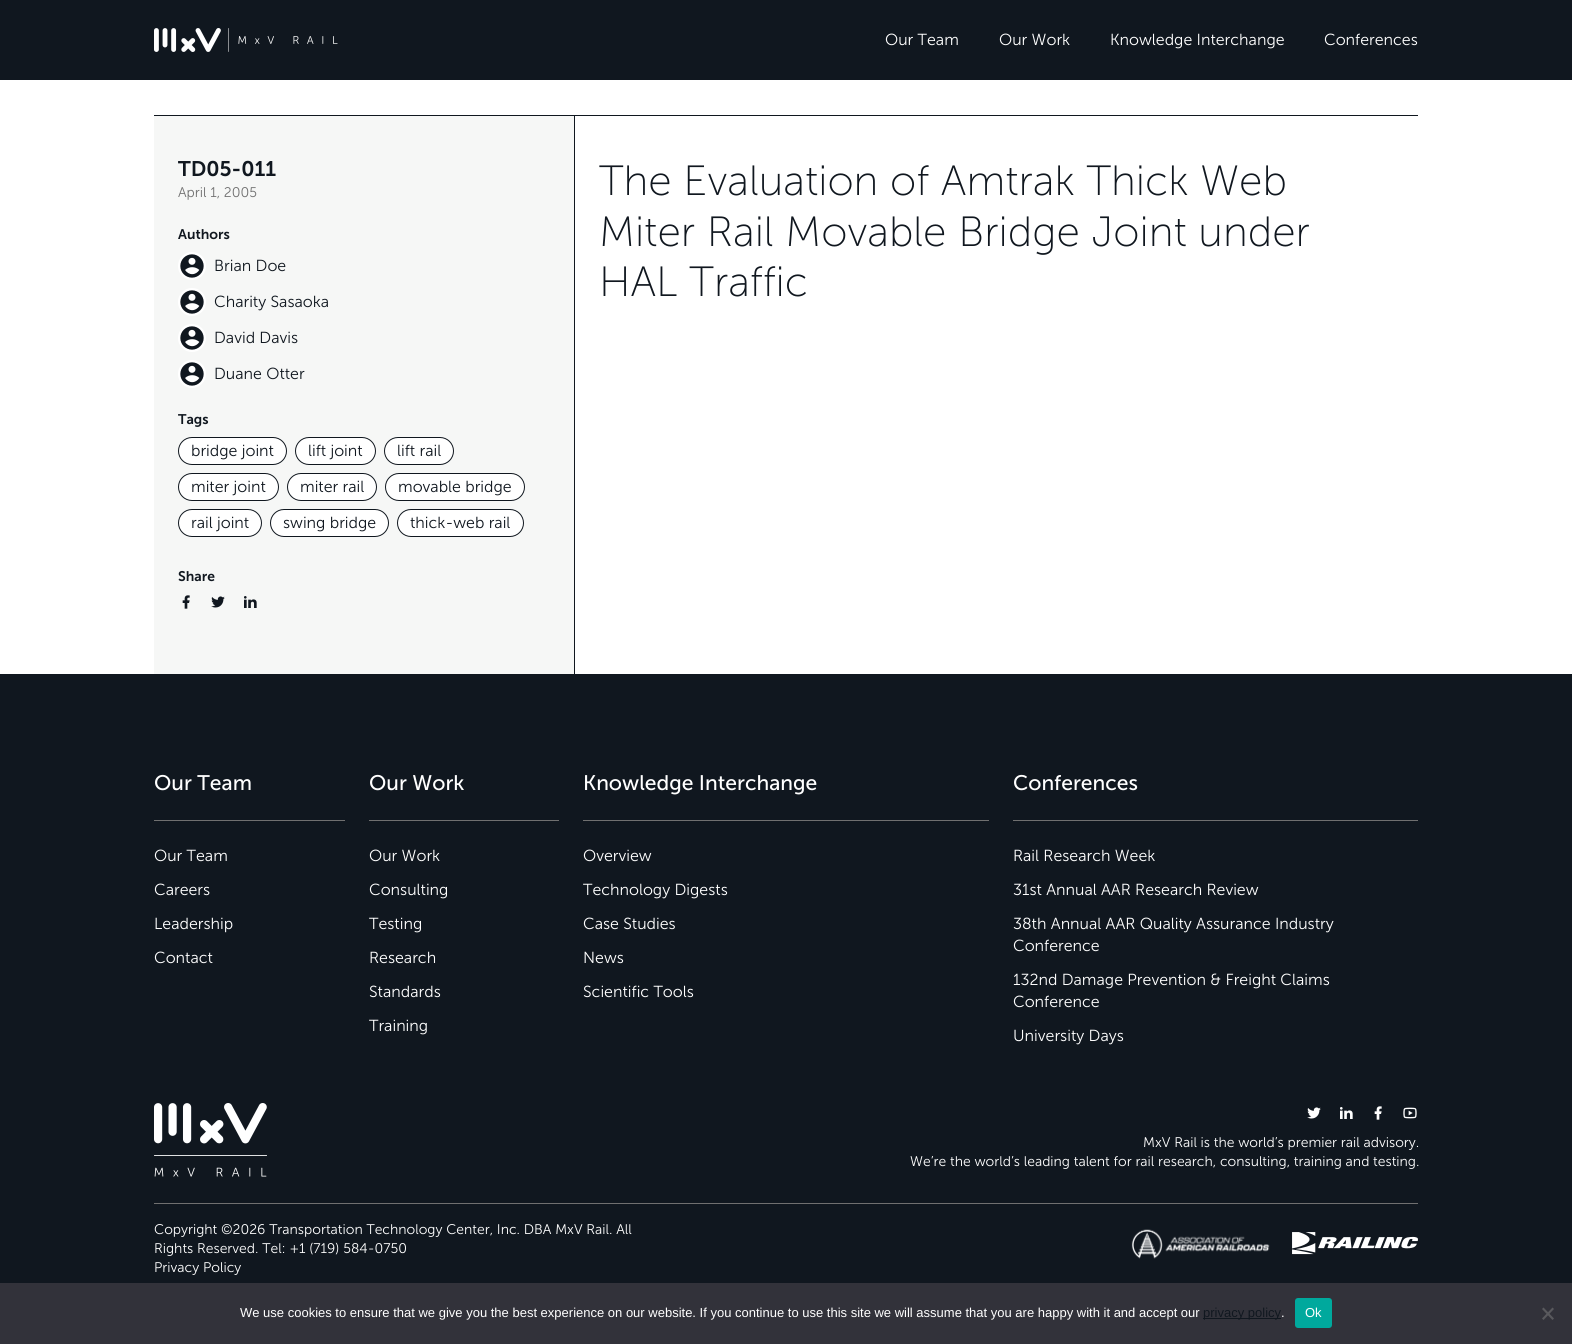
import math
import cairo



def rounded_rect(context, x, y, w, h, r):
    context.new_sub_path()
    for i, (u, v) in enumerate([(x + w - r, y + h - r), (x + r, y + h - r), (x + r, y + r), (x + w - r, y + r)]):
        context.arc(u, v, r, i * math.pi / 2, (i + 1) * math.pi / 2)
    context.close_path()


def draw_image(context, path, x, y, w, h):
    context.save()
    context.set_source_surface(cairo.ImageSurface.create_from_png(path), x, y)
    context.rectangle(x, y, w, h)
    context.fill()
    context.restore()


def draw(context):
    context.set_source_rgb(16 / 255, 23 / 255, 31 / 255)
    context.paint()
    draw_image(context, "images/1.png", 154, 28, 184, 24)
    context.set_source_rgb(1, 1, 1)
    context.rectangle(0, 80, 1572, 594)
    context.fill()
    context.set_source_rgb(16 / 255, 23 / 255, 31 / 255)
    context.rectangle(154, 115, 1264, 1)
    context.fill()
    context.rectangle(574, 116, 1, 558)
    context.fill()
    context.set_source_rgb(246 / 255, 247 / 255, 246 / 255)
    context.rectangle(154, 116, 420, 558)
    context.fill()
    context.set_source_rgb(1, 1, 1)
    context.arc(192, 266, 14, 0, 2 * math.pi)
    context.fill()
    draw_image(context, "images/2.png", 180, 254, 24, 24)
    context.arc(192, 302, 14, 0, 2 * math.pi)
    context.fill()
    draw_image(context, "images/2.png", 180, 290, 24, 24)
    context.arc(192, 338, 14, 0, 2 * math.pi)
    context.fill()
    draw_image(context, "images/2.png", 180, 326, 24, 24)
    context.arc(192, 374, 14, 0, 2 * math.pi)
    context.fill()
    draw_image(context, "images/2.png", 180, 362, 24, 24)
    rounded_rect(context, 178.5, 437.5, 108, 27, 13.5)
    context.fill_preserve()
    context.set_source_rgb(16 / 255, 23 / 255, 31 / 255)
    context.set_line_width(1)
    context.stroke()
    context.set_source_rgb(1, 1, 1)
    rounded_rect(context, 295.5, 437.5, 80, 27, 13.5)
    context.fill_preserve()
    context.set_source_rgb(16 / 255, 23 / 255, 31 / 255)
    context.stroke()
    context.set_source_rgb(1, 1, 1)
    rounded_rect(context, 384.5, 437.5, 69, 27, 13.5)
    context.fill_preserve()
    context.set_source_rgb(16 / 255, 23 / 255, 31 / 255)
    context.stroke()
    context.set_source_rgb(1, 1, 1)
    rounded_rect(context, 178.5, 473.5, 100, 27, 13.5)
    context.fill_preserve()
    context.set_source_rgb(16 / 255, 23 / 255, 31 / 255)
    context.stroke()
    context.set_source_rgb(1, 1, 1)
    rounded_rect(context, 287.5, 473.5, 89, 27, 13.5)
    context.fill_preserve()
    context.set_source_rgb(16 / 255, 23 / 255, 31 / 255)
    context.stroke()
    context.set_source_rgb(1, 1, 1)
    rounded_rect(context, 385.5, 473.5, 139, 27, 13.5)
    context.fill_preserve()
    context.set_source_rgb(16 / 255, 23 / 255, 31 / 255)
    context.stroke()
    context.set_source_rgb(1, 1, 1)
    rounded_rect(context, 178.5, 509.5, 83, 27, 13.5)
    context.fill_preserve()
    context.set_source_rgb(16 / 255, 23 / 255, 31 / 255)
    context.stroke()
    context.set_source_rgb(1, 1, 1)
    rounded_rect(context, 270.5, 509.5, 118, 27, 13.5)
    context.fill_preserve()
    context.set_source_rgb(16 / 255, 23 / 255, 31 / 255)
    context.stroke()
    context.set_source_rgb(1, 1, 1)
    rounded_rect(context, 397.5, 509.5, 126, 27, 13.5)
    context.fill_preserve()
    context.set_source_rgb(16 / 255, 23 / 255, 31 / 255)
    context.stroke()
    draw_image(context, "images/3.png", 182, 595, 8, 14)
    draw_image(context, "images/4.png", 211, 596, 14, 12)
    draw_image(context, "images/5.png", 244, 596, 13, 12)
    context.set_source_rgb(112 / 255, 112 / 255, 112 / 255)
    context.rectangle(154, 820, 191, 1)
    context.fill()
    context.rectangle(369, 820, 190, 1)
    context.fill()
    context.rectangle(583, 820, 406, 1)
    context.fill()
    context.rectangle(1013, 820, 405, 1)
    context.fill()
    draw_image(context, "images/6.png", 154, 1103, 113, 74)
    draw_image(context, "images/7.png", 1307, 1107, 14, 12)
    draw_image(context, "images/8.png", 1340, 1107, 13, 12)
    draw_image(context, "images/9.png", 1374, 1106, 8, 14)
    draw_image(context, "images/10.png", 1403, 1107, 14, 12)
    context.rectangle(154, 1203, 1264, 1)
    context.fill()
    draw_image(context, "images/11.png", 1131, 1229, 139, 30)
    draw_image(context, "images/12.png", 1292, 1232, 126, 23)
    context.set_source_rgb(50 / 255, 50 / 255, 58 / 255)
    context.rectangle(0, 1283, 1572, 61)
    context.fill()
    context.set_source_rgb(16 / 255, 23 / 255, 31 / 255)
    context.rectangle(1203, 1318, 78, 1)
    context.fill()
    context.set_source_rgb(0, 169 / 255, 157 / 255)
    rounded_rect(context, 1295, 1298, 37, 30, 3)
    context.fill()
    context.set_source_rgb(89 / 255, 89 / 255, 93 / 255)
    context.new_path()
    context.move_to(1552.5, 1307.5)
    context.line_to(1554, 1309)
    context.line_to(1543.5, 1320)
    context.line_to(1542, 1318.5)
    context.close_path()
    context.fill()
    context.new_path()
    context.move_to(1542, 1309)
    context.line_to(1543.5, 1307.5)
    context.line_to(1554, 1318.5)
    context.line_to(1552.5, 1320)
    context.close_path()
    context.fill()
    context.select_font_face("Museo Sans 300 Light")
    context.set_font_size(16)
    context.set_source_rgb(1, 1, 1)
    context.move_to(885, 45)
    context.show_text("Our Team")
    context.move_to(999, 45)
    context.show_text("Our Work")
    context.move_to(1110, 45)
    context.show_text("Knowledge Interchange")
    context.move_to(1324, 45)
    context.show_text("Conferences")
    context.select_font_face("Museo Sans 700 SemiBold")
    context.set_font_size(21.1)
    context.set_source_rgb(16 / 255, 23 / 255, 31 / 255)
    context.move_to(178, 176)
    context.show_text("TD05-011")
    context.select_font_face("Museo Sans 300 Light")
    context.set_font_size(13.95)
    context.set_source_rgb(112 / 255, 112 / 255, 112 / 255)
    context.move_to(178, 197)
    context.show_text("April 1, 2005")
    context.select_font_face("Museo Sans 700 SemiBold")
    context.set_source_rgb(16 / 255, 23 / 255, 31 / 255)
    context.move_to(178, 239)
    context.show_text("Authors")
    context.select_font_face("Museo Sans 300 Light")
    context.set_font_size(16)
    context.move_to(214, 271)
    context.show_text("Brian Doe")
    context.move_to(214, 307)
    context.show_text("Charity Sasaoka")
    context.move_to(214, 343)
    context.show_text("David Davis")
    context.move_to(214, 379)
    context.show_text("Duane Otter")
    context.select_font_face("Museo Sans 700 SemiBold")
    context.set_font_size(13.95)
    context.move_to(178, 424)
    context.show_text("Tags")
    context.select_font_face("Museo Sans 300 Light")
    context.set_font_size(16)
    context.move_to(191, 456)
    context.show_text("bridge joint")
    context.move_to(308, 456)
    context.show_text("lift joint")
    context.move_to(397, 456)
    context.show_text("lift rail")
    context.move_to(191, 492)
    context.show_text("miter joint")
    context.move_to(300, 492)
    context.show_text("miter rail")
    context.move_to(398, 492)
    context.show_text("movable bridge")
    context.move_to(191, 528)
    context.show_text("rail joint")
    context.move_to(283, 528)
    context.show_text("swing bridge")
    context.move_to(410, 528)
    context.show_text("thick-web rail")
    context.select_font_face("Museo Sans 700 SemiBold")
    context.set_font_size(13.95)
    context.move_to(178, 581)
    context.show_text("Share")
    context.select_font_face("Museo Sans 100 Light")
    context.set_font_size(42.25)
    context.move_to(599, 195)
    context.show_text("The Evaluation of Amtrak Thick Web")
    context.move_to(599, 246)
    context.show_text("Miter Rail Movable Bridge Joint under")
    context.move_to(599, 296)
    context.show_text("HAL Traffic")
    context.select_font_face("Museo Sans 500")
    context.set_font_size(21.1)
    context.set_source_rgb(1, 1, 1)
    context.move_to(154, 790)
    context.show_text("Our Team")
    context.select_font_face("Museo Sans 300 Light")
    context.set_font_size(16)
    context.move_to(154, 861)
    context.show_text("Our Team")
    context.move_to(154, 895)
    context.show_text("Careers")
    context.move_to(154, 929)
    context.show_text("Leadership")
    context.move_to(154, 963)
    context.show_text("Contact")
    context.select_font_face("Museo Sans 500")
    context.set_font_size(21.1)
    context.move_to(369, 790)
    context.show_text("Our Work")
    context.select_font_face("Museo Sans 300 Light")
    context.set_font_size(16)
    context.move_to(369, 861)
    context.show_text("Our Work")
    context.move_to(369, 895)
    context.show_text("Consulting")
    context.move_to(369, 929)
    context.show_text("Testing")
    context.move_to(369, 963)
    context.show_text("Research")
    context.move_to(369, 997)
    context.show_text("Standards")
    context.move_to(369, 1031)
    context.show_text("Training")
    context.select_font_face("Museo Sans 500")
    context.set_font_size(21.1)
    context.move_to(583, 790)
    context.show_text("Knowledge Interchange")
    context.select_font_face("Museo Sans 300 Light")
    context.set_font_size(16)
    context.move_to(583, 861)
    context.show_text("Overview")
    context.move_to(583, 895)
    context.show_text("Technology Digests")
    context.move_to(583, 929)
    context.show_text("Case Studies")
    context.move_to(583, 963)
    context.show_text("News")
    context.move_to(583, 997)
    context.show_text("Scientific Tools")
    context.select_font_face("Museo Sans 500")
    context.set_font_size(21.1)
    context.move_to(1013, 790)
    context.show_text("Conferences")
    context.select_font_face("Museo Sans 300 Light")
    context.set_font_size(16)
    context.move_to(1013, 861)
    context.show_text("Rail Research Week")
    context.move_to(1013, 895)
    context.show_text("31st Annual AAR Research Review")
    context.move_to(1013, 929)
    context.show_text("38th Annual AAR Quality Assurance Industry")
    context.move_to(1013, 951)
    context.show_text("Conference")
    context.move_to(1013, 985)
    context.show_text("132nd Damage Prevention & Freight Claims")
    context.move_to(1013, 1007)
    context.show_text("Conference")
    context.move_to(1013, 1041)
    context.show_text("University Days")
    context.set_font_size(13.95)
    context.move_to(1143, 1147)
    context.show_text("MxV Rail is the world’s premier rail advisory.")
    context.move_to(910, 1166)
    context.show_text("We’re the world’s leading talent for rail research, consulting, training and testing.")
    context.move_to(154, 1234)
    context.show_text("Copyright ©2026 Transportation Technology Center, Inc. DBA MxV Rail. All")
    context.move_to(154, 1253)
    context.show_text("Rights Reserved. Tel: +1 (719) 584-0750")
    context.move_to(154, 1272)
    context.show_text("Privacy Policy")
    context.select_font_face("Liberation Sans")
    context.set_font_size(13)
    context.move_to(240, 1317)
    context.show_text("We use cookies to ensure that we give you the best experience on our website. If you continue to use this site we will assume that you are happy with it and accept our")
    context.set_source_rgb(16 / 255, 23 / 255, 31 / 255)
    context.move_to(1203, 1317)
    context.show_text("privacy policy")
    context.set_source_rgb(1, 1, 1)
    context.move_to(1281, 1317)
    context.show_text(".")
    context.move_to(1305, 1317)
    context.show_text("Ok")


surface = cairo.ImageSurface(cairo.Format.RGB24, 1572, 1344)
context = cairo.Context(surface)
options = cairo.FontOptions()
options.set_hint_metrics(cairo.HintMetrics.OFF)
options.set_hint_style(cairo.HintStyle.NONE)
context.set_font_options(options)
context.set_miter_limit(4)
draw(context)
surface.write_to_png("out.png")
